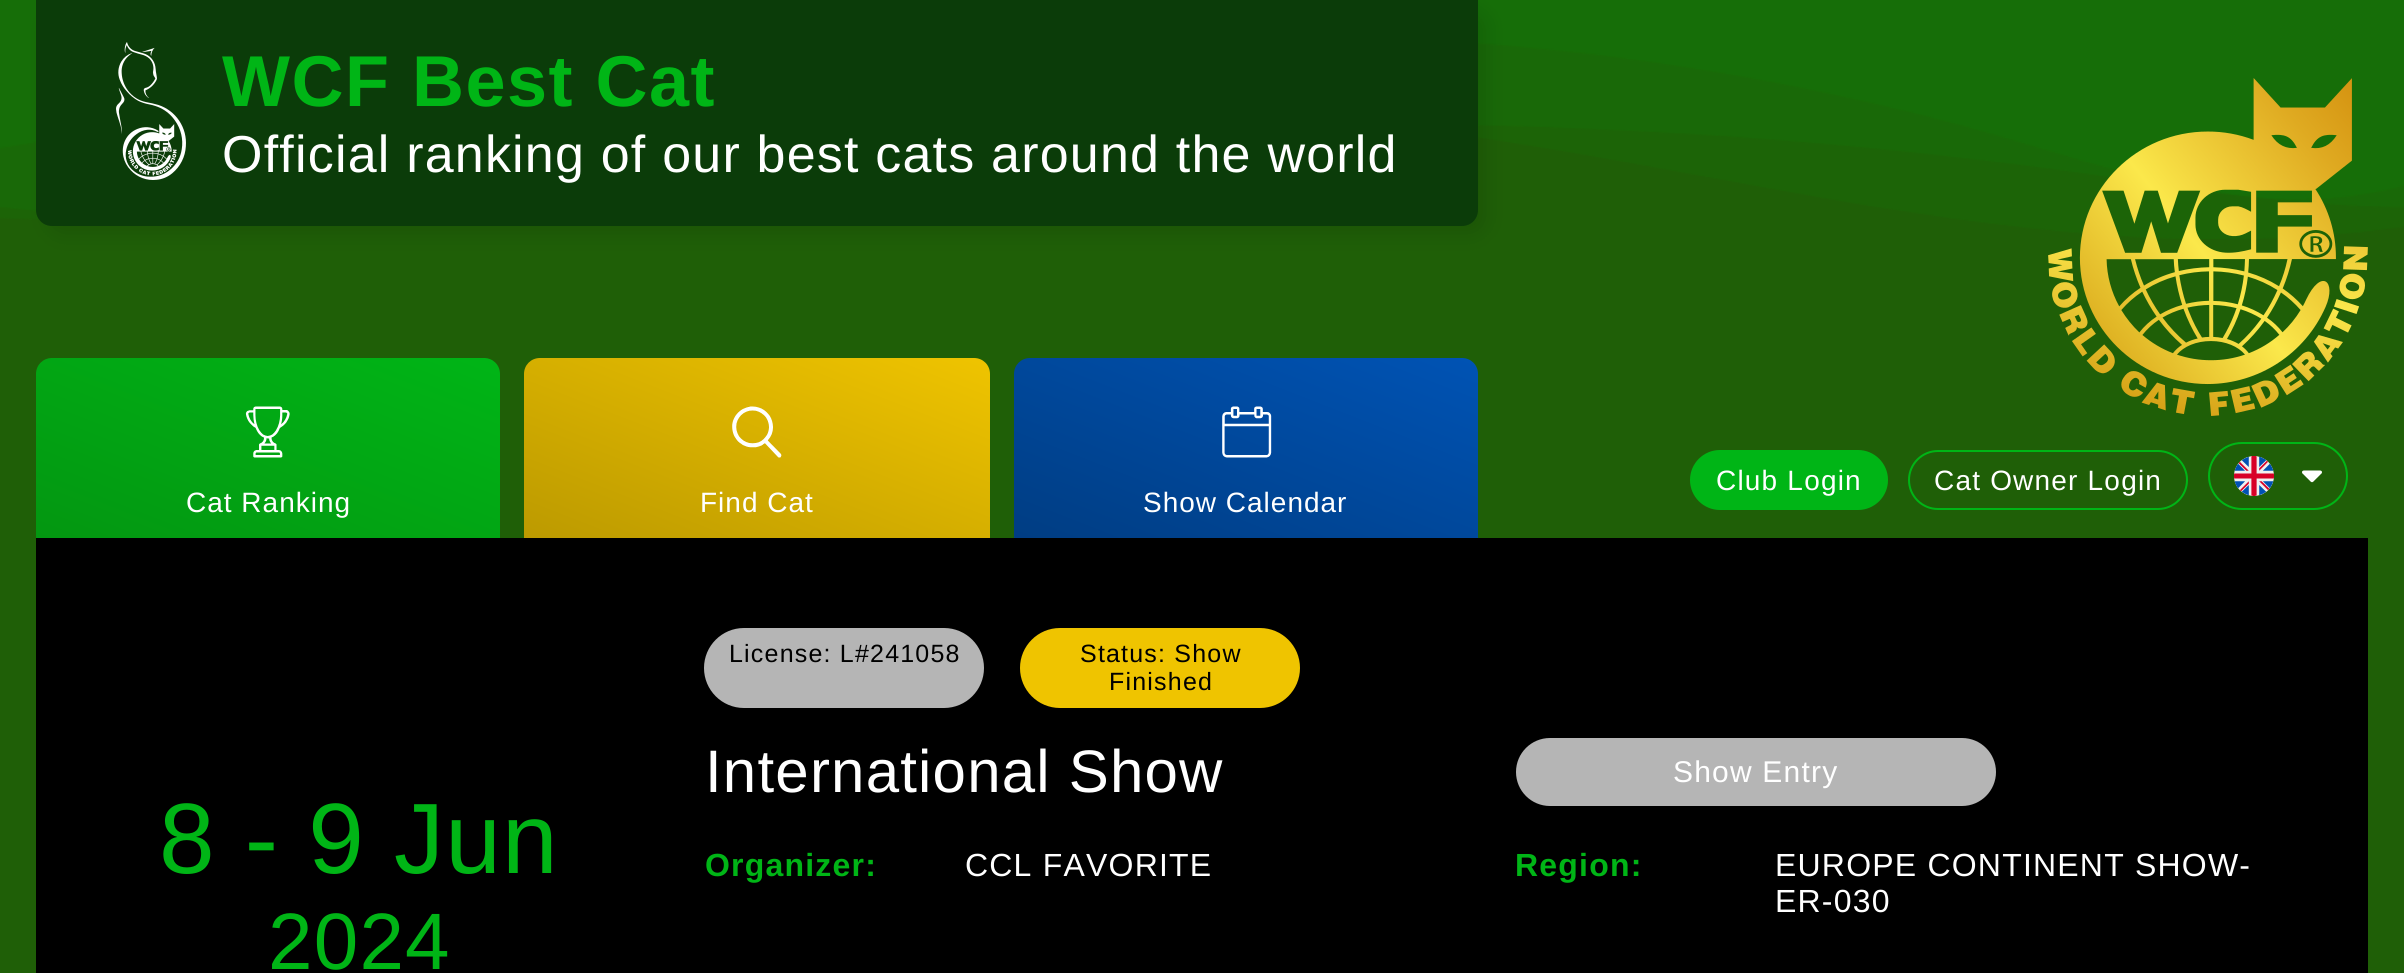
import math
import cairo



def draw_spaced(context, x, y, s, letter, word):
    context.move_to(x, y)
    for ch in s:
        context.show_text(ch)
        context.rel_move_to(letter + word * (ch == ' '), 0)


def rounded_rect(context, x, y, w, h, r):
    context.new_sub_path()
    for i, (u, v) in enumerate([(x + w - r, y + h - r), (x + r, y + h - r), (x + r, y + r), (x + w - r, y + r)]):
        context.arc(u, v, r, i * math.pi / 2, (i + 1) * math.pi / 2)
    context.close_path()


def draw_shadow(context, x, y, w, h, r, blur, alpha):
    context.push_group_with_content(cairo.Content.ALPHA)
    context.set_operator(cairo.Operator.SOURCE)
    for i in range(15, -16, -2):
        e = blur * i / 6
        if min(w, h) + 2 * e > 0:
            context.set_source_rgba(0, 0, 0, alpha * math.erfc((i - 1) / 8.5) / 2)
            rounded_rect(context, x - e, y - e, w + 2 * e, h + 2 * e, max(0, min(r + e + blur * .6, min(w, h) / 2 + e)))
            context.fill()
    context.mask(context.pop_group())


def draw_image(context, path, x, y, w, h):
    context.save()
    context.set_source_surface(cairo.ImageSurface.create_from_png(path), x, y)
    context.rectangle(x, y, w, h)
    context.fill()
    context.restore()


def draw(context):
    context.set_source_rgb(31 / 255, 95 / 255, 7 / 255)
    context.paint()
    draw_image(context, "images/1.png", 0, 0, 2404, 239)
    context.set_source_rgb(0, 0, 0)
    draw_shadow(context, 46, 10, 1442, 226, 16, 10, 0.1)
    context.set_source_rgb(11 / 255, 60 / 255, 9 / 255)
    context.new_path()
    context.move_to(36, 0)
    context.line_to(1478, 0)
    context.line_to(1478, 210)
    context.curve_to(1478, 219, 1471, 226, 1462, 226)
    context.line_to(52, 226)
    context.curve_to(43, 226, 36, 219, 36, 210)
    context.close_path()
    context.fill()
    draw_image(context, "images/2.png", 116, 42, 70, 138)
    gradient = cairo.LinearGradient(329, 292, 207, 604)
    gradient.add_color_stop_rgba(0, 0, 181 / 255, 22 / 255, 1)
    gradient.add_color_stop_rgba(1, 3 / 255, 151 / 255, 17 / 255, 1)
    context.set_source(gradient)
    context.new_path()
    context.move_to(52, 358)
    context.line_to(484, 358)
    context.curve_to(493, 358, 500, 365, 500, 374)
    context.line_to(500, 538)
    context.line_to(36, 538)
    context.line_to(36, 374)
    context.curve_to(36, 365, 43, 358, 52, 358)
    context.close_path()
    context.fill()
    draw_image(context, "images/3.png", 245, 406, 45, 52)
    gradient = cairo.LinearGradient(818, 291, 696, 605)
    gradient.add_color_stop_rgba(0, 239 / 255, 196 / 255, 0, 1)
    gradient.add_color_stop_rgba(1, 188 / 255, 154 / 255, 0, 1)
    context.set_source(gradient)
    context.new_path()
    context.move_to(540, 358)
    context.line_to(974, 358)
    context.curve_to(983, 358, 990, 365, 990, 374)
    context.line_to(990, 538)
    context.line_to(524, 538)
    context.line_to(524, 374)
    context.curve_to(524, 365, 531, 358, 540, 358)
    context.close_path()
    context.fill()
    draw_image(context, "images/4.png", 732, 406, 50, 52)
    gradient = cairo.LinearGradient(1307, 292, 1185, 604)
    gradient.add_color_stop_rgba(0, 0, 83 / 255, 180 / 255, 1)
    gradient.add_color_stop_rgba(1, 0, 61 / 255, 131 / 255, 1)
    context.set_source(gradient)
    context.new_path()
    context.move_to(1030, 358)
    context.line_to(1462, 358)
    context.curve_to(1471, 358, 1478, 365, 1478, 374)
    context.line_to(1478, 538)
    context.line_to(1014, 538)
    context.line_to(1014, 374)
    context.curve_to(1014, 365, 1021, 358, 1030, 358)
    context.close_path()
    context.fill()
    draw_image(context, "images/5.png", 1222, 406, 50, 52)
    draw_image(context, "images/6.png", 2048, 78, 320, 338)
    context.set_source_rgb(0, 181 / 255, 22 / 255)
    rounded_rect(context, 1691, 451, 196, 58, 29)
    context.fill_preserve()
    context.stroke()
    rounded_rect(context, 1909, 451, 278, 58, 29)
    context.stroke()
    rounded_rect(context, 2209, 443, 138, 66, 33)
    context.stroke()
    draw_image(context, "images/7.png", 2234, 456, 40, 40)
    draw_image(context, "images/8.png", 2302, 470, 20, 13)
    context.set_source_rgb(0, 0, 0)
    context.rectangle(36, 538, 2332, 435)
    context.fill()
    context.set_source_rgb(181 / 255, 181 / 255, 181 / 255)
    rounded_rect(context, 704, 628, 280, 80, 40)
    context.fill()
    context.set_source_rgb(239 / 255, 196 / 255, 0)
    rounded_rect(context, 1020, 628, 280, 80, 40)
    context.fill()
    context.set_source_rgb(181 / 255, 181 / 255, 181 / 255)
    rounded_rect(context, 1516, 738, 480, 68, 34)
    context.fill()
    context.select_font_face("Liberation Sans", cairo.FontSlant.NORMAL, cairo.FontWeight.BOLD)
    context.set_font_size(72)
    context.set_source_rgb(0, 181 / 255, 22 / 255)
    draw_spaced(context, 222, 106, "WCF Best Cat", 1.5, 0)
    context.select_font_face("Liberation Sans")
    context.set_font_size(52)
    context.set_source_rgb(1, 1, 1)
    draw_spaced(context, 222, 172, "Official ranking of our best cats around the world", 1.2, 0)
    context.set_font_size(28)
    draw_spaced(context, 186, 512, "Cat Ranking", 1, 0)
    draw_spaced(context, 700, 512, "Find Cat", 1, 0)
    draw_spaced(context, 1143, 512, "Show Calendar", 1, 0)
    draw_spaced(context, 1716, 490, "Club Login", 1.2, 0)
    draw_spaced(context, 1934, 490, "Cat Owner Login", 1.2, 0)
    context.set_font_size(100)
    context.set_source_rgb(0, 181 / 255, 22 / 255)
    draw_spaced(context, 159, 873, "8 - 9 Jun", 1.2, 0)
    context.set_font_size(80)
    draw_spaced(context, 268, 969, "2024", 1.2, 0)
    context.set_font_size(25)
    context.set_source_rgb(0, 0, 0)
    draw_spaced(context, 729, 662, "License: L#241058", 1.2, 0)
    draw_spaced(context, 1080, 662, "Status: Show", 1.2, 0)
    draw_spaced(context, 1109, 690, "Finished", 1.2, 0)
    context.set_font_size(60)
    context.set_source_rgb(1, 1, 1)
    draw_spaced(context, 705, 792, "International Show", 1.2, 0)
    context.set_font_size(30)
    draw_spaced(context, 1673, 782, "Show Entry", 1.2, 0)
    context.select_font_face("Liberation Sans", cairo.FontSlant.NORMAL, cairo.FontWeight.BOLD)
    context.set_font_size(32)
    context.set_source_rgb(0, 181 / 255, 22 / 255)
    draw_spaced(context, 705, 876, "Organizer:", 1.2, 0)
    context.select_font_face("Liberation Sans")
    context.set_source_rgb(1, 1, 1)
    draw_spaced(context, 965, 876, "CCL FAVORITE", 1.2, 0)
    context.select_font_face("Liberation Sans", cairo.FontSlant.NORMAL, cairo.FontWeight.BOLD)
    context.set_source_rgb(0, 181 / 255, 22 / 255)
    draw_spaced(context, 1515, 876, "Region:", 1.2, 0)
    context.select_font_face("Liberation Sans")
    context.set_source_rgb(1, 1, 1)
    draw_spaced(context, 1775, 876, "EUROPE CONTINENT SHOW-", 1.2, 0)
    draw_spaced(context, 1775, 912, "ER-030", 1.2, 0)


surface = cairo.ImageSurface(cairo.Format.RGB24, 2404, 973)
context = cairo.Context(surface)
options = cairo.FontOptions()
options.set_hint_metrics(cairo.HintMetrics.OFF)
options.set_hint_style(cairo.HintStyle.NONE)
context.set_font_options(options)
context.set_miter_limit(4)
draw(context)
surface.write_to_png("out.png")
